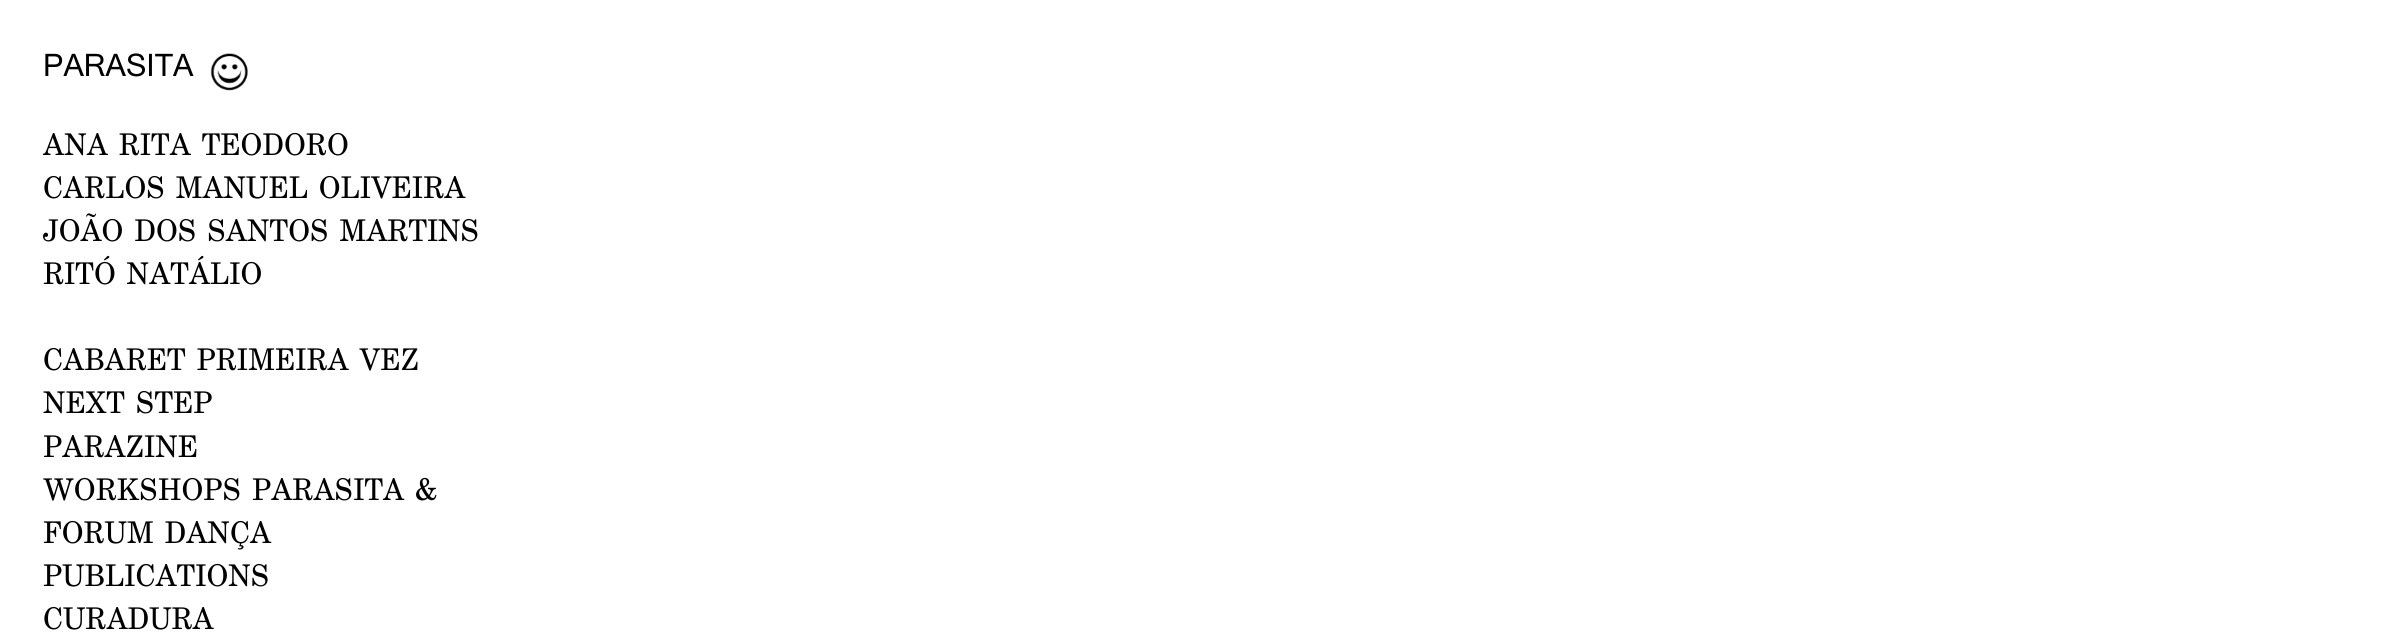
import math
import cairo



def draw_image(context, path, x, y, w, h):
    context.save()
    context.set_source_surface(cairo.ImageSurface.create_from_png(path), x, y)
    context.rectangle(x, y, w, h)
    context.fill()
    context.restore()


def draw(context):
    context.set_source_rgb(1, 1, 1)
    context.paint()
    draw_image(context, "images/1.png", 210, 53, 38, 38)
    context.select_font_face("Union")
    context.set_font_size(31)
    context.set_source_rgb(0, 0, 0)
    context.move_to(43, 76)
    context.show_text("PARASITA")
    context.select_font_face("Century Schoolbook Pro")
    context.set_font_size(32.4)
    context.move_to(43, 155)
    context.show_text("ANA RITA TEODORO")
    context.move_to(43, 198)
    context.show_text("CARLOS MANUEL OLIVEIRA")
    context.move_to(43, 241)
    context.show_text("JOÃO DOS SANTOS MARTI")
    context.move_to(438, 241)
    context.show_text("NS")
    context.move_to(43, 284)
    context.show_text("RITÓ NATÁLIO")
    context.move_to(43, 370)
    context.show_text("CABARET PRIMEIRA VEZ")
    context.move_to(43, 413)
    context.show_text("NEXT STEP")
    context.move_to(43, 457)
    context.show_text("PARAZINE")
    context.move_to(43, 500)
    context.show_text("WORKSHOPS PARASITA &")
    context.move_to(43, 543)
    context.show_text("FORUM DANÇA")
    context.move_to(43, 586)
    context.show_text("PUBLICATIONS")
    context.move_to(43, 629)
    context.show_text("CURADURA")


surface = cairo.ImageSurface(cairo.Format.RGB24, 2396, 639)
context = cairo.Context(surface)
options = cairo.FontOptions()
options.set_hint_metrics(cairo.HintMetrics.OFF)
options.set_hint_style(cairo.HintStyle.NONE)
context.set_font_options(options)
context.set_miter_limit(4)
draw(context)
surface.write_to_png("out.png")
